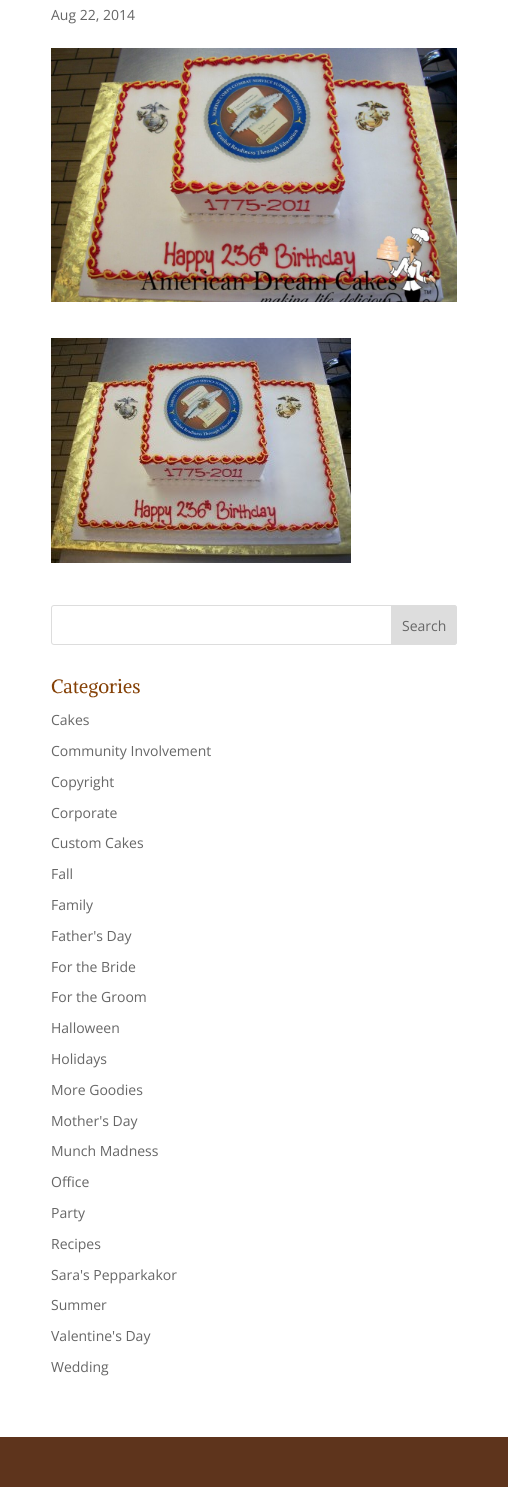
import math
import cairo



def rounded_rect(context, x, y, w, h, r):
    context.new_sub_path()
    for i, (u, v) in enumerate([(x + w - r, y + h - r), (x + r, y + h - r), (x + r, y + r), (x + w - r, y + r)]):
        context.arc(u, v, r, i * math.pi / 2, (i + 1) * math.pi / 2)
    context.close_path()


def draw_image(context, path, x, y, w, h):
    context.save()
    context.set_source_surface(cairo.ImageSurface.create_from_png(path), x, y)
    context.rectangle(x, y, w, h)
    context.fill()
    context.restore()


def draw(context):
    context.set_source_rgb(1, 1, 1)
    context.paint()
    draw_image(context, "images/1.png", 51, 48, 406, 254)
    draw_image(context, "images/2.png", 51, 338, 300, 225)
    rounded_rect(context, 51.5, 605.5, 405, 39, 2.5)
    context.set_source_rgb(221 / 255, 221 / 255, 221 / 255)
    context.set_line_width(1)
    context.stroke()
    context.new_path()
    context.move_to(391.5, 605.5)
    context.line_to(454, 605.5)
    context.curve_to(455.5, 605.5, 456.5, 606.5, 456.5, 608)
    context.line_to(456.5, 642)
    context.curve_to(456.5, 643.5, 455.5, 644.5, 454, 644.5)
    context.line_to(391.5, 644.5)
    context.close_path()
    context.fill_preserve()
    context.stroke()
    context.set_source_rgb(94 / 255, 52 / 255, 28 / 255)
    context.rectangle(0, 1437, 508, 50)
    context.fill()
    context.select_font_face("Open Sans")
    context.set_font_size(14)
    context.set_source_rgb(102 / 255, 102 / 255, 102 / 255)
    context.move_to(51, 20)
    context.show_text("Aug 22, 2014")
    context.move_to(402, 631)
    context.show_text("Search")
    context.select_font_face("Alike Angular")
    context.set_font_size(19)
    context.set_source_rgb(132 / 255, 64 / 255, 5 / 255)
    context.move_to(51, 693)
    context.show_text("Categories")
    context.select_font_face("Open Sans")
    context.set_font_size(14)
    context.set_source_rgb(102 / 255, 102 / 255, 102 / 255)
    context.move_to(51, 725)
    context.show_text("Cakes")
    context.move_to(51, 756)
    context.show_text("Community Involvement")
    context.move_to(51, 787)
    context.show_text("Copyright")
    context.move_to(51, 818)
    context.show_text("Corporate")
    context.move_to(51, 848)
    context.show_text("Custom Cakes")
    context.move_to(51, 879)
    context.show_text("Fall")
    context.move_to(51, 910)
    context.show_text("Family")
    context.move_to(51, 941)
    context.show_text("Father's Day")
    context.move_to(51, 972)
    context.show_text("For the Bride")
    context.move_to(51, 1002)
    context.show_text("For the Groom")
    context.move_to(51, 1033)
    context.show_text("Halloween")
    context.move_to(51, 1064)
    context.show_text("Holidays")
    context.move_to(51, 1095)
    context.show_text("More Goodies")
    context.move_to(51, 1126)
    context.show_text("Mother's Day")
    context.move_to(51, 1156)
    context.show_text("Munch Madness")
    context.move_to(51, 1187)
    context.show_text("Office")
    context.move_to(51, 1218)
    context.show_text("Party")
    context.move_to(51, 1249)
    context.show_text("Recipes")
    context.move_to(51, 1280)
    context.show_text("Sara's Pepparkakor")
    context.move_to(51, 1310)
    context.show_text("Summer")
    context.move_to(51, 1341)
    context.show_text("Valentine's Day")
    context.move_to(51, 1372)
    context.show_text("Wedding")


surface = cairo.ImageSurface(cairo.Format.RGB24, 508, 1487)
context = cairo.Context(surface)
options = cairo.FontOptions()
options.set_hint_metrics(cairo.HintMetrics.OFF)
options.set_hint_style(cairo.HintStyle.NONE)
context.set_font_options(options)
context.set_miter_limit(4)
draw(context)
surface.write_to_png("out.png")
